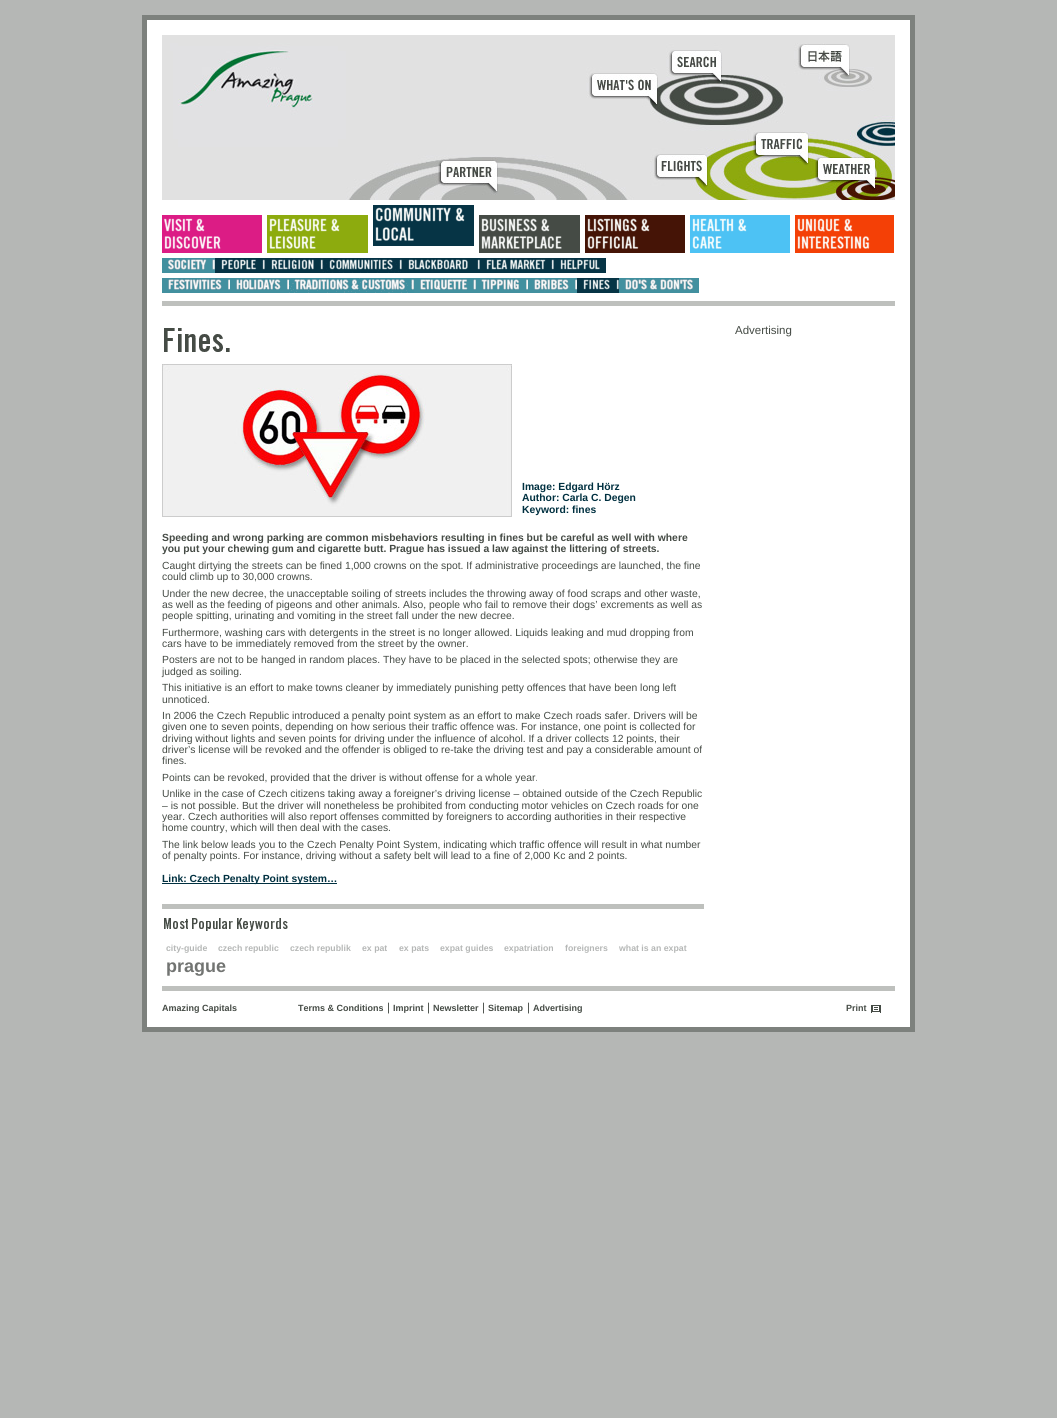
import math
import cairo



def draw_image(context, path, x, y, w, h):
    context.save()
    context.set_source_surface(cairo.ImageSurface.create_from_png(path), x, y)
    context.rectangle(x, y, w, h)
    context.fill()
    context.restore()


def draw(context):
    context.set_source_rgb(181 / 255, 183 / 255, 181 / 255)
    context.paint()
    context.set_source_rgb(1, 1, 1)
    context.rectangle(144.5, 17.5, 768, 1012)
    context.fill_preserve()
    context.set_source_rgb(125 / 255, 129 / 255, 125 / 255)
    context.set_line_width(5)
    context.stroke()
    draw_image(context, "images/1.png", 162, 35, 733, 165)
    draw_image(context, "images/2.png", 373, 205, 101, 41)
    draw_image(context, "images/3.png", 162, 258, 53, 15)
    draw_image(context, "images/4.png", 162, 278, 68, 15)
    draw_image(context, "images/5.png", 230, 278, 59, 15)
    draw_image(context, "images/6.png", 289, 278, 125, 15)
    draw_image(context, "images/7.png", 414, 278, 62, 15)
    draw_image(context, "images/8.png", 476, 278, 52, 15)
    draw_image(context, "images/9.png", 528, 278, 49, 15)
    draw_image(context, "images/10.png", 577, 278, 42, 15)
    draw_image(context, "images/11.png", 619, 278, 80, 15)
    draw_image(context, "images/12.png", 215, 258, 50, 15)
    draw_image(context, "images/13.png", 265, 258, 58, 15)
    draw_image(context, "images/14.png", 323, 258, 79, 15)
    draw_image(context, "images/15.png", 402, 258, 78, 15)
    draw_image(context, "images/16.png", 480, 258, 74, 15)
    draw_image(context, "images/17.png", 554, 258, 52, 15)
    draw_image(context, "images/18.png", 162, 215, 100, 38)
    draw_image(context, "images/19.png", 267, 215, 101, 38)
    draw_image(context, "images/20.png", 479, 215, 101, 38)
    draw_image(context, "images/21.png", 585, 215, 100, 38)
    draw_image(context, "images/22.png", 690, 215, 100, 38)
    draw_image(context, "images/23.png", 795, 215, 99, 38)
    context.set_source_rgb(190 / 255, 192 / 255, 189 / 255)
    context.rectangle(162, 301, 733, 5)
    context.fill()
    context.rectangle(162, 986, 733, 5)
    context.fill()
    draw_image(context, "images/24.png", 164, 328, 66, 24)
    draw_image(context, "images/25.png", 162, 364, 350, 153)
    context.set_source_rgb(0, 48 / 255, 64 / 255)
    context.rectangle(162, 883, 175, 1)
    context.fill()
    context.set_source_rgb(190 / 255, 192 / 255, 189 / 255)
    context.rectangle(162, 904, 542, 5)
    context.fill()
    draw_image(context, "images/26.png", 164, 918, 124, 13)
    draw_image(context, "images/27.png", 871, 1005, 10, 8)
    context.select_font_face("Liberation Sans")
    context.set_font_size(11.5)
    context.set_source_rgb(69 / 255, 75 / 255, 69 / 255)
    context.move_to(735, 334)
    context.show_text("Advertising")
    context.select_font_face("Liberation Sans", cairo.FontSlant.NORMAL, cairo.FontWeight.BOLD)
    context.set_font_size(10.35)
    context.set_source_rgb(0, 48 / 255, 64 / 255)
    context.move_to(522, 490)
    context.show_text("Image: Edgard Hörz")
    context.move_to(522, 501)
    context.show_text("Author: Carla C. Degen")
    context.move_to(522, 513)
    context.show_text("Keyword: fines")
    context.set_source_rgb(69 / 255, 75 / 255, 69 / 255)
    context.move_to(162, 541)
    context.show_text("Speeding and wrong parking are common misbehaviors resulting in fines but be careful as well with where")
    context.move_to(162, 552)
    context.show_text("you put your chewing gum and cigarette butt. Prague has issued a law against the littering of streets.")
    context.select_font_face("Liberation Sans")
    context.move_to(162, 569)
    context.show_text("Caught dirtying the streets can be fined 1,000 crowns on the spot. If administrative proceedings are launched, the fine")
    context.move_to(162, 580)
    context.show_text("could climb up to 30,000 crowns.")
    context.move_to(162, 597)
    context.show_text("Under the new decree, the unacceptable soiling of streets includes the throwing away of food scraps and other waste,")
    context.move_to(162, 608)
    context.show_text("as well as the feeding of pigeons and other animals. Also, people who fail to remove their dogs’ excrements as well as")
    context.move_to(162, 619)
    context.show_text("people spitting, urinating and vomiting in the street fall under the new decree.")
    context.move_to(162, 636)
    context.show_text("Furthermore, washing cars with detergents in the street is no longer allowed. Liquids leaking and mud dropping from")
    context.move_to(162, 647)
    context.show_text("cars have to be immediately removed from the street by the owner.")
    context.move_to(162, 663)
    context.show_text("Posters are not to be hanged in random places. They have to be placed in the selected spots; otherwise they are")
    context.move_to(162, 675)
    context.show_text("judged as soiling.")
    context.move_to(162, 691)
    context.show_text("This initiative is an effort to make towns cleaner by immediately punishing petty offences that have been long left")
    context.move_to(162, 703)
    context.show_text("unnoticed.")
    context.move_to(162, 719)
    context.show_text("In 2006 the Czech Republic introduced a penalty point system as an effort to make Czech roads safer. Drivers will be")
    context.move_to(162, 730)
    context.show_text("given one to seven points, depending on how serious their traffic offence was. For instance, one point is collected for")
    context.move_to(162, 742)
    context.show_text("driving without lights and seven points for driving under the influence of alcohol. If a driver collects 12 points, their")
    context.move_to(162, 753)
    context.show_text("driver’s license will be revoked and the offender is obliged to re-take the driving test and pay a considerable amount of")
    context.move_to(162, 764)
    context.show_text("fines.")
    context.move_to(162, 781)
    context.show_text("Points can be revoked, provided that the driver is without offense for a whole year.")
    context.move_to(162, 797)
    context.show_text("Unlike in the case of Czech citizens taking away a foreigner’s driving license – obtained outside of the Czech Republic")
    context.move_to(162, 809)
    context.show_text("– is not possible. But the driver will nonetheless be prohibited from conducting motor vehicles on Czech roads for one")
    context.move_to(162, 820)
    context.show_text("year. Czech authorities will also report offenses committed by foreigners to according authorities in their respective")
    context.move_to(162, 831)
    context.show_text("home country, which will then deal with the cases.")
    context.move_to(162, 848)
    context.show_text("The link below leads you to the Czech Penalty Point System, indicating which traffic offence will result in what number")
    context.move_to(162, 859)
    context.show_text("of penalty points. For instance, driving without a safety belt will lead to a fine of 2,000 Kc and 2 points.")
    context.select_font_face("Liberation Sans", cairo.FontSlant.NORMAL, cairo.FontWeight.BOLD)
    context.set_source_rgb(0, 48 / 255, 64 / 255)
    context.move_to(162, 882)
    context.show_text("Link: Czech Penalty Point system…")
    context.set_font_size(8.75)
    context.set_source_rgb(181 / 255, 183 / 255, 182 / 255)
    context.move_to(166, 951)
    context.show_text("city-guide")
    context.move_to(218, 951)
    context.show_text("czech republic")
    context.move_to(290, 951)
    context.show_text("czech republik")
    context.move_to(362, 951)
    context.show_text("ex pat")
    context.move_to(399, 951)
    context.show_text("ex pats")
    context.move_to(440, 951)
    context.show_text("expat guides")
    context.move_to(504, 951)
    context.show_text("expatriation")
    context.move_to(565, 951)
    context.show_text("foreigners")
    context.move_to(619, 951)
    context.show_text("what is an expat")
    context.set_font_size(18)
    context.set_source_rgb(114 / 255, 116 / 255, 114 / 255)
    context.move_to(166, 972)
    context.show_text("prague")
    context.set_font_size(9)
    context.set_source_rgb(69 / 255, 75 / 255, 69 / 255)
    context.move_to(162, 1011)
    context.show_text("Amazing Capitals")
    context.move_to(298, 1011)
    context.show_text("Terms & Conditions")
    context.select_font_face("Liberation Sans")
    context.set_font_size(11.5)
    context.move_to(387, 1011)
    context.show_text("|")
    context.select_font_face("Liberation Sans", cairo.FontSlant.NORMAL, cairo.FontWeight.BOLD)
    context.set_font_size(9)
    context.move_to(393, 1011)
    context.show_text("Imprint")
    context.select_font_face("Liberation Sans")
    context.set_font_size(11.5)
    context.move_to(427, 1011)
    context.show_text("|")
    context.select_font_face("Liberation Sans", cairo.FontSlant.NORMAL, cairo.FontWeight.BOLD)
    context.set_font_size(9)
    context.move_to(433, 1011)
    context.show_text("Newsletter")
    context.select_font_face("Liberation Sans")
    context.set_font_size(11.5)
    context.move_to(482, 1011)
    context.show_text("|")
    context.select_font_face("Liberation Sans", cairo.FontSlant.NORMAL, cairo.FontWeight.BOLD)
    context.set_font_size(9)
    context.move_to(488, 1011)
    context.show_text("Sitemap")
    context.select_font_face("Liberation Sans")
    context.set_font_size(11.5)
    context.move_to(527, 1011)
    context.show_text("|")
    context.select_font_face("Liberation Sans", cairo.FontSlant.NORMAL, cairo.FontWeight.BOLD)
    context.set_font_size(9)
    context.move_to(533, 1011)
    context.show_text("Advertising")
    context.move_to(846, 1011)
    context.show_text("Print")


surface = cairo.ImageSurface(cairo.Format.RGB24, 1057, 1418)
context = cairo.Context(surface)
options = cairo.FontOptions()
options.set_hint_metrics(cairo.HintMetrics.OFF)
options.set_hint_style(cairo.HintStyle.NONE)
context.set_font_options(options)
context.set_miter_limit(4)
draw(context)
surface.write_to_png("out.png")
